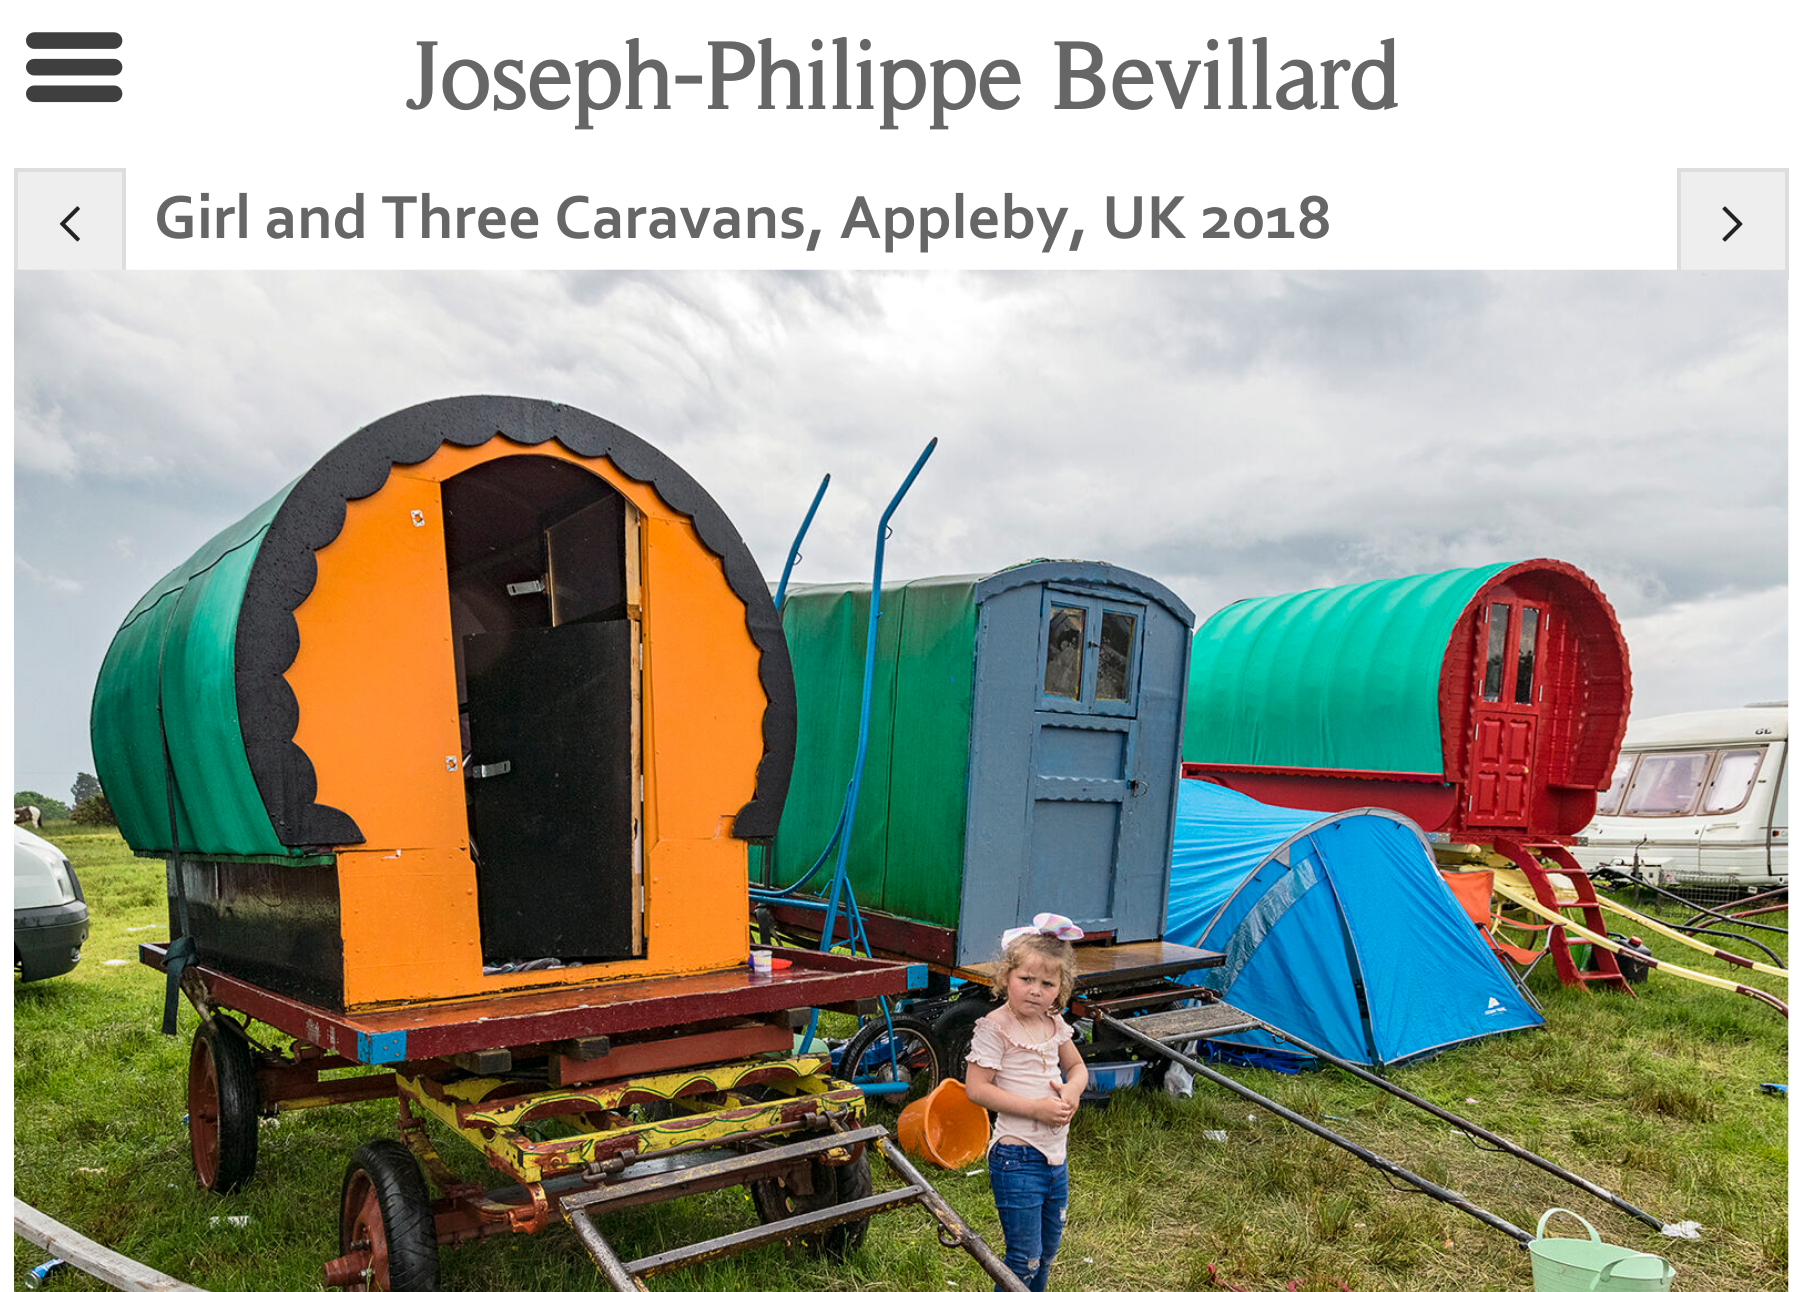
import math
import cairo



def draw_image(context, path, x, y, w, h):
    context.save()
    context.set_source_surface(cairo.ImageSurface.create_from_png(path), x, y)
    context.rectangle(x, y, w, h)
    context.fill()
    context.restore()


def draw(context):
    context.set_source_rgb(1, 1, 1)
    context.paint()
    draw_image(context, "images/1.png", 26, 32, 97, 71)
    context.set_source_rgb(238 / 255, 238 / 255, 238 / 255)
    context.rectangle(18, 172, 104, 98)
    context.fill()
    context.rectangle(16, 170, 108, 108)
    context.set_source_rgb(221 / 255, 221 / 255, 221 / 255)
    context.set_line_width(4)
    context.stroke()
    draw_image(context, "images/2.png", 59, 206, 21, 36)
    context.set_source_rgb(238 / 255, 238 / 255, 238 / 255)
    context.rectangle(1681, 172, 104, 98)
    context.fill()
    context.rectangle(1679, 170, 108, 108)
    context.set_source_rgb(221 / 255, 221 / 255, 221 / 255)
    context.stroke()
    draw_image(context, "images/3.png", 1722, 206, 21, 36)
    draw_image(context, "images/4.png", 14, 269, 1775, 1023)
    context.select_font_face("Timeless", cairo.FontSlant.NORMAL, cairo.FontWeight.BOLD)
    context.set_font_size(95.75)
    context.set_source_rgb(102 / 255, 102 / 255, 102 / 255)
    context.move_to(405, 109)
    context.show_text("Joseph-Philippe Bevillard")
    context.select_font_face("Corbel", cairo.FontSlant.NORMAL, cairo.FontWeight.BOLD)
    context.set_font_size(63.8)
    context.move_to(154, 238)
    context.show_text("Girl and Three Caravans, Appleby, UK 2018")


surface = cairo.ImageSurface(cairo.Format.RGB24, 1802, 1292)
context = cairo.Context(surface)
options = cairo.FontOptions()
options.set_hint_metrics(cairo.HintMetrics.OFF)
options.set_hint_style(cairo.HintStyle.NONE)
context.set_font_options(options)
context.set_miter_limit(4)
draw(context)
surface.write_to_png("out.png")
